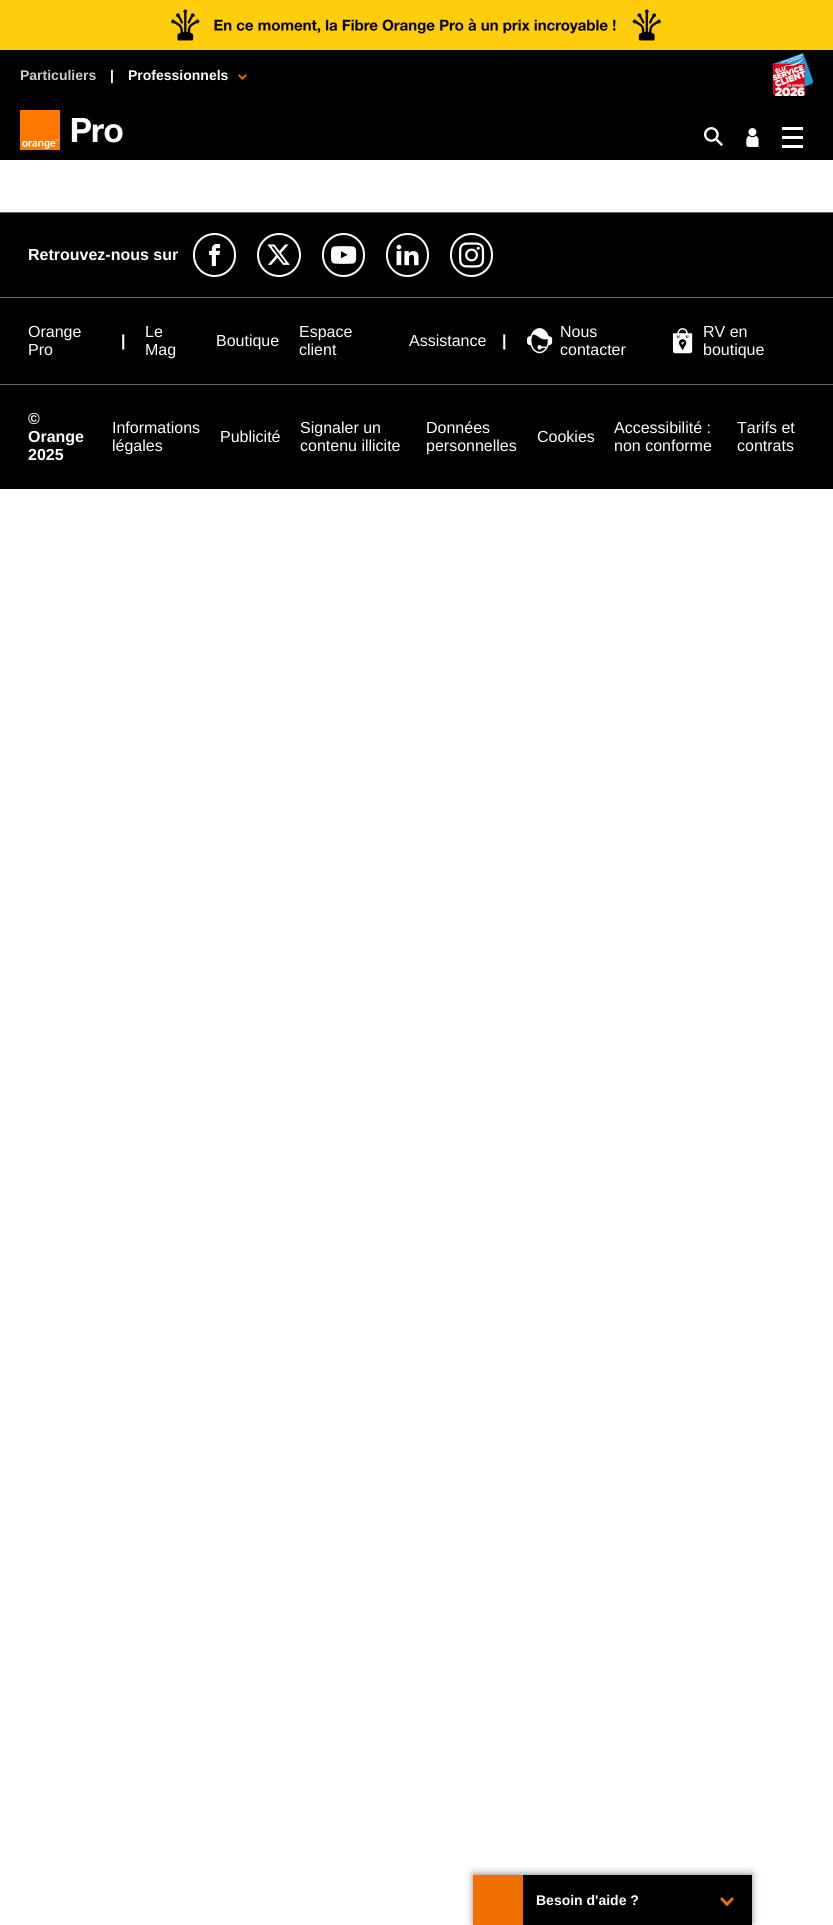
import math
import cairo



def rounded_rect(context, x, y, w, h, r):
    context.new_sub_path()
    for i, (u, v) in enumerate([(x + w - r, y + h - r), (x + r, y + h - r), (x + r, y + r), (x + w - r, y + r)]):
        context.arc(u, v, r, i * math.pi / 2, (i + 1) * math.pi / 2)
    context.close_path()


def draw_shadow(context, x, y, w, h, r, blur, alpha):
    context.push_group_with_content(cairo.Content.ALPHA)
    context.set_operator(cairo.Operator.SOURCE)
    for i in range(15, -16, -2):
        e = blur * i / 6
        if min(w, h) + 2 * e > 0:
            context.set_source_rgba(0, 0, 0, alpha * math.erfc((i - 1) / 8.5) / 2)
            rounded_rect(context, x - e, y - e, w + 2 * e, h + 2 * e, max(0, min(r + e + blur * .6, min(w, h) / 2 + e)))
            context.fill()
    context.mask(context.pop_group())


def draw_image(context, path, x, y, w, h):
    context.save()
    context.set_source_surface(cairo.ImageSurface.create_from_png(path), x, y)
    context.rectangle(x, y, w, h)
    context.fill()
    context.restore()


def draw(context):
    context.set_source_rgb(1, 1, 1)
    context.paint()
    context.set_source_rgb(1, 205 / 255, 11 / 255)
    context.rectangle(0, 0, 833, 50)
    context.fill()
    draw_image(context, "images/1.png", 171, 9, 490, 32)
    context.set_source_rgb(0, 0, 0)
    context.rectangle(0, 50, 833, 110)
    context.fill()
    draw_image(context, "images/2.png", 238, 74, 9, 6)
    draw_image(context, "images/3.png", 773, 53, 40, 43)
    draw_image(context, "images/4.png", 20, 110, 103, 40)
    draw_image(context, "images/5.png", 704, 127, 19, 19)
    draw_image(context, "images/6.png", 746, 128, 13, 19)
    context.set_source_rgb(1, 1, 1)
    context.rectangle(782, 136, 21, 3)
    context.fill()
    context.rectangle(782, 127, 21, 3)
    context.fill()
    context.rectangle(782, 145, 21, 3)
    context.fill()
    context.set_source_rgb(0, 0, 0)
    context.rectangle(0, 213, 833, 84)
    context.fill()
    context.set_source_rgb(102 / 255, 102 / 255, 102 / 255)
    context.rectangle(0, 212, 833, 1)
    context.fill()
    rounded_rect(context, 194, 234, 41, 42, 20.5)
    context.set_source_rgb(1, 1, 1)
    context.stroke()
    draw_image(context, "images/7.png", 209, 244, 12, 22)
    context.arc(279, 255, 21, 0, 2 * math.pi)
    context.stroke()
    draw_image(context, "images/8.png", 267, 244, 23, 21)
    rounded_rect(context, 323, 234, 41, 42, 20.5)
    context.stroke()
    draw_image(context, "images/9.png", 331, 246, 26, 18)
    rounded_rect(context, 387, 234, 41, 42, 20.5)
    context.stroke()
    draw_image(context, "images/10.png", 396, 244, 23, 22)
    rounded_rect(context, 451, 234, 41, 42, 20.5)
    context.stroke()
    draw_image(context, "images/11.png", 459, 242, 26, 26)
    context.set_source_rgb(0, 0, 0)
    context.rectangle(0, 298, 833, 86)
    context.fill()
    context.set_source_rgb(102 / 255, 102 / 255, 102 / 255)
    context.rectangle(0, 297, 833, 1)
    context.fill()
    draw_image(context, "images/12.png", 527, 328, 26, 26)
    draw_image(context, "images/13.png", 672, 328, 21, 26)
    context.set_source_rgb(0, 0, 0)
    context.rectangle(0, 385, 833, 104)
    context.fill()
    context.set_source_rgb(102 / 255, 102 / 255, 102 / 255)
    context.rectangle(0, 384, 833, 1)
    context.fill()
    context.set_source_rgb(0, 0, 0)
    draw_shadow(context, 473, 1874, 279, 49, 0, 4, 0.44)
    context.set_source_rgb(0, 0, 0)
    context.rectangle(523, 1875, 229, 50)
    context.fill()
    context.set_source_rgb(241 / 255, 110 / 255, 0)
    context.rectangle(473, 1875, 50, 50)
    context.fill()
    draw_image(context, "images/14.png", 720, 1897, 14, 10)
    context.select_font_face("Liberation Sans", cairo.FontSlant.NORMAL, cairo.FontWeight.BOLD)
    context.set_font_size(14)
    context.set_source_rgb(204 / 255, 204 / 255, 204 / 255)
    context.move_to(20, 80)
    context.show_text("Particuliers")
    context.set_source_rgb(1, 1, 1)
    context.move_to(110, 80)
    context.show_text("|")
    context.move_to(128, 80)
    context.show_text("Professionnels")
    context.set_font_size(16)
    context.move_to(28, 260)
    context.show_text("Retrouvez-nous sur")
    context.select_font_face("Liberation Sans")
    context.move_to(28, 337)
    context.show_text("Orange")
    context.move_to(28, 355)
    context.show_text("Pro")
    context.select_font_face("Liberation Sans", cairo.FontSlant.NORMAL, cairo.FontWeight.BOLD)
    context.move_to(121, 346)
    context.show_text("|")
    context.select_font_face("Liberation Sans")
    context.move_to(145, 337)
    context.show_text("Le")
    context.move_to(145, 355)
    context.show_text("Mag")
    context.move_to(216, 346)
    context.show_text("Boutique")
    context.move_to(299, 337)
    context.show_text("Espace")
    context.move_to(299, 355)
    context.show_text("client")
    context.move_to(409, 346)
    context.show_text("Assistance")
    context.select_font_face("Liberation Sans", cairo.FontSlant.NORMAL, cairo.FontWeight.BOLD)
    context.move_to(502, 346)
    context.show_text("|")
    context.select_font_face("Liberation Sans")
    context.move_to(560, 337)
    context.show_text("Nous")
    context.move_to(560, 355)
    context.show_text("contacter")
    context.move_to(703, 337)
    context.show_text("RV en")
    context.move_to(703, 355)
    context.show_text("boutique")
    context.select_font_face("Liberation Sans", cairo.FontSlant.NORMAL, cairo.FontWeight.BOLD)
    context.move_to(28, 424)
    context.show_text("©")
    context.move_to(28, 442)
    context.show_text("Orange")
    context.move_to(28, 460)
    context.show_text("2025")
    context.select_font_face("Liberation Sans")
    context.move_to(112, 433)
    context.show_text("Informations")
    context.move_to(112, 451)
    context.show_text("légales")
    context.move_to(220, 442)
    context.show_text("Publicité")
    context.move_to(300, 433)
    context.show_text("Signaler un")
    context.move_to(300, 451)
    context.show_text("contenu illicite")
    context.move_to(426, 433)
    context.show_text("Données")
    context.move_to(426, 451)
    context.show_text("personnelles")
    context.move_to(537, 442)
    context.show_text("Cookies")
    context.move_to(614, 433)
    context.show_text("Accessibilité :")
    context.move_to(614, 451)
    context.show_text("non conforme")
    context.move_to(737, 433)
    context.show_text("Tarifs et")
    context.move_to(737, 451)
    context.show_text("contrats")
    context.select_font_face("Liberation Sans", cairo.FontSlant.NORMAL, cairo.FontWeight.BOLD)
    context.set_font_size(14)
    context.move_to(536, 1905)
    context.show_text("Besoin d'aide ?")


surface = cairo.ImageSurface(cairo.Format.RGB24, 833, 1925)
context = cairo.Context(surface)
options = cairo.FontOptions()
options.set_hint_metrics(cairo.HintMetrics.OFF)
options.set_hint_style(cairo.HintStyle.NONE)
context.set_font_options(options)
context.set_miter_limit(4)
draw(context)
surface.write_to_png("out.png")
